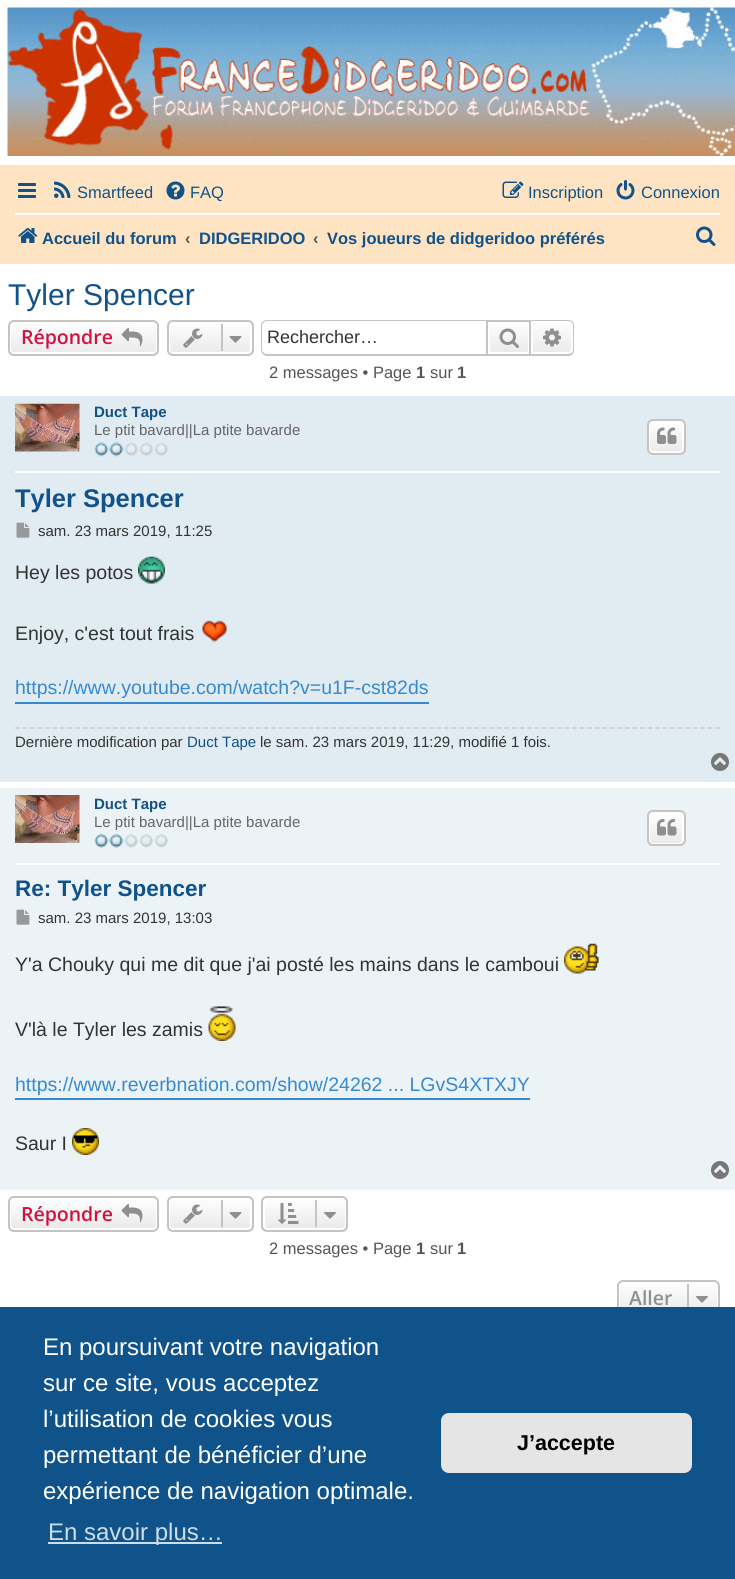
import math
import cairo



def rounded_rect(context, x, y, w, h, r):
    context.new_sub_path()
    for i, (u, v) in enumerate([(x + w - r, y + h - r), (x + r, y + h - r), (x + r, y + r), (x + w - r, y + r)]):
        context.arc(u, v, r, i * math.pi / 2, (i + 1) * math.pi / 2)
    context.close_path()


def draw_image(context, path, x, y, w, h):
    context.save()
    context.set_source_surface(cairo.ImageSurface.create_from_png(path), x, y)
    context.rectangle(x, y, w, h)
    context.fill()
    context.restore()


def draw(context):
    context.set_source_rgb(1, 1, 1)
    context.paint()
    draw_image(context, "images/1.png", 7, 7, 728, 149)
    context.set_source_rgb(1, 228 / 255, 196 / 255)
    context.rectangle(0, 165, 735, 99)
    context.fill()
    draw_image(context, "images/2.png", 18, 183, 18, 15)
    draw_image(context, "images/3.png", 54, 181, 17, 17)
    draw_image(context, "images/4.png", 166, 181, 19, 19)
    draw_image(context, "images/5.png", 502, 181, 22, 17)
    draw_image(context, "images/6.png", 616, 180, 19, 20)
    context.set_source_rgb(1, 1, 1)
    context.rectangle(15, 213, 705, 2)
    context.fill()
    draw_image(context, "images/7.png", 18, 228, 20, 15)
    draw_image(context, "images/8.png", 696, 226, 20, 20)
    context.save()
    rounded_rect(context, 8, 320, 151, 36, 6)
    context.clip()
    gradient = cairo.LinearGradient(83, 321, 83, 354)
    gradient.add_color_stop_rgba(0, 1, 1, 1, 1)
    gradient.add_color_stop_rgba(1, 233 / 255, 233 / 255, 233 / 255, 1)
    context.set_source(gradient)
    context.rectangle(8, 321, 151, 33)
    context.fill()
    context.restore()
    rounded_rect(context, 10, 322, 147, 31, 4)
    context.stroke()
    rounded_rect(context, 9, 321, 149, 34, 5)
    context.set_source_rgb(199 / 255, 195 / 255, 191 / 255)
    context.stroke()
    draw_image(context, "images/9.png", 121, 327, 22, 20)
    context.save()
    rounded_rect(context, 167, 320, 87, 36, 6)
    context.clip()
    gradient = cairo.LinearGradient(210, 321, 210, 354)
    gradient.add_color_stop_rgba(0, 1, 1, 1, 1)
    gradient.add_color_stop_rgba(1, 233 / 255, 233 / 255, 233 / 255, 1)
    context.set_source(gradient)
    context.rectangle(167, 321, 87, 33)
    context.fill()
    context.restore()
    rounded_rect(context, 169, 322, 82, 31, 4)
    context.set_source_rgb(1, 1, 1)
    context.stroke()
    rounded_rect(context, 168, 321, 85, 34, 5)
    context.set_source_rgb(199 / 255, 195 / 255, 191 / 255)
    context.stroke()
    draw_image(context, "images/10.png", 183, 328, 20, 20)
    context.rectangle(221, 324, 2, 27)
    context.fill()
    draw_image(context, "images/11.png", 229, 336, 13, 7)
    context.set_fill_rule(cairo.FillRule.EVEN_ODD)
    context.new_path()
    context.move_to(267, 320)
    context.line_to(486, 320)
    context.line_to(486, 356)
    context.line_to(267, 356)
    context.curve_to(264, 356, 261, 353, 261, 350)
    context.line_to(261, 326)
    context.curve_to(261, 322, 264, 320, 267, 320)
    context.close_path()
    context.move_to(267, 321)
    context.line_to(486, 321)
    context.line_to(486, 354)
    context.line_to(267, 354)
    context.curve_to(265, 354, 262, 352, 262, 350)
    context.line_to(262, 326)
    context.curve_to(262, 323, 265, 321, 267, 321)
    context.close_path()
    context.fill()
    gradient = cairo.LinearGradient(509, 321, 509, 354)
    gradient.add_color_stop_rgba(0, 1, 1, 1, 1)
    gradient.add_color_stop_rgba(1, 233 / 255, 233 / 255, 233 / 255, 1)
    context.set_source(gradient)
    context.rectangle(490, 325, 38, 27)
    context.fill()
    context.rectangle(487, 321, 43, 34)
    context.set_source_rgb(199 / 255, 195 / 255, 191 / 255)
    context.stroke()
    draw_image(context, "images/12.png", 499, 328, 20, 20)
    gradient = cairo.LinearGradient(552, 321, 552, 354)
    gradient.add_color_stop_rgba(0, 1, 1, 1, 1)
    gradient.add_color_stop_rgba(1, 233 / 255, 233 / 255, 233 / 255, 1)
    context.set_source(gradient)
    context.new_path()
    context.move_to(532, 322)
    context.line_to(568, 322)
    context.curve_to(570, 322, 572, 324, 572, 326)
    context.line_to(572, 349)
    context.curve_to(572, 351, 570, 353, 568, 353)
    context.line_to(532, 353)
    context.close_path()
    context.fill_preserve()
    context.set_source_rgb(1, 1, 1)
    context.stroke()
    context.set_source_rgb(199 / 255, 195 / 255, 191 / 255)
    context.new_path()
    context.move_to(531, 320)
    context.line_to(568, 320)
    context.curve_to(572, 320, 574, 322, 574, 326)
    context.line_to(574, 350)
    context.curve_to(574, 353, 572, 356, 568, 356)
    context.line_to(531, 356)
    context.close_path()
    context.move_to(531, 321)
    context.line_to(568, 321)
    context.curve_to(571, 321, 573, 323, 573, 326)
    context.line_to(573, 350)
    context.curve_to(573, 352, 571, 354, 568, 354)
    context.line_to(531, 354)
    context.close_path()
    context.fill()
    draw_image(context, "images/13.png", 543, 328, 18, 19)
    context.set_source_rgb(225 / 255, 235 / 255, 242 / 255)
    context.rectangle(0, 396, 735, 386)
    context.fill()
    context.set_source_rgb(1, 1, 1)
    context.rectangle(15, 471, 705, 2)
    context.fill()
    draw_image(context, "images/14.png", 15, 403, 65, 49)
    draw_image(context, "images/15.png", 94, 442, 74, 15)
    context.save()
    context.set_fill_rule(cairo.FillRule.WINDING)
    rounded_rect(context, 647, 419, 39, 36, 6)
    context.clip()
    gradient = cairo.LinearGradient(666, 420, 666, 453)
    gradient.add_color_stop_rgba(0, 1, 1, 1, 1)
    gradient.add_color_stop_rgba(1, 233 / 255, 233 / 255, 233 / 255, 1)
    context.set_source(gradient)
    context.rectangle(647, 420, 39, 33)
    context.fill()
    context.restore()
    rounded_rect(context, 649, 421, 34, 31, 4)
    context.stroke()
    rounded_rect(context, 648, 420, 37, 34, 5)
    context.set_source_rgb(199 / 255, 195 / 255, 191 / 255)
    context.stroke()
    draw_image(context, "images/16.png", 657, 427, 20, 17)
    draw_image(context, "images/17.png", 16, 522, 14, 16)
    draw_image(context, "images/18.png", 138, 556, 27, 28)
    draw_image(context, "images/19.png", 202, 620, 25, 23)
    context.set_source_rgb(54 / 255, 138 / 255, 210 / 255)
    context.rectangle(15, 702, 414, 2)
    context.fill()
    context.new_path()
    context.move_to(15, 728)
    context.line_to(720, 728)
    context.set_source_rgb(204 / 255, 204 / 255, 204 / 255)
    context.set_line_width(1.5)
    context.set_dash([4.5, 3.03])
    context.stroke()
    draw_image(context, "images/20.png", 711, 753, 18, 18)
    context.set_source_rgb(236 / 255, 243 / 255, 247 / 255)
    context.rectangle(0, 788, 735, 402)
    context.fill()
    context.set_source_rgb(1, 1, 1)
    context.rectangle(15, 863, 705, 2)
    context.fill()
    draw_image(context, "images/21.png", 15, 795, 65, 48)
    draw_image(context, "images/22.png", 94, 833, 74, 15)
    context.save()
    context.set_fill_rule(cairo.FillRule.WINDING)
    rounded_rect(context, 647, 810, 39, 36, 6)
    context.clip()
    gradient = cairo.LinearGradient(666, 812, 666, 845)
    gradient.add_color_stop_rgba(0, 1, 1, 1, 1)
    gradient.add_color_stop_rgba(1, 233 / 255, 233 / 255, 233 / 255, 1)
    context.set_source(gradient)
    context.rectangle(647, 812, 39, 33)
    context.fill()
    context.restore()
    rounded_rect(context, 649, 813, 34, 31, 4)
    context.set_line_width(2)
    context.set_dash([])
    context.stroke()
    rounded_rect(context, 648, 811, 37, 34, 5)
    context.set_source_rgb(199 / 255, 195 / 255, 191 / 255)
    context.stroke()
    draw_image(context, "images/23.png", 657, 819, 20, 17)
    draw_image(context, "images/24.png", 16, 909, 14, 16)
    draw_image(context, "images/25.png", 564, 943, 35, 31)
    draw_image(context, "images/26.png", 208, 1006, 28, 35)
    context.set_source_rgb(54 / 255, 138 / 255, 210 / 255)
    context.rectangle(15, 1098, 515, 2)
    context.fill()
    draw_image(context, "images/27.png", 72, 1128, 27, 27)
    draw_image(context, "images/28.png", 711, 1161, 18, 18)
    context.save()
    context.set_fill_rule(cairo.FillRule.WINDING)
    rounded_rect(context, 8, 1196, 151, 36, 6)
    context.clip()
    gradient = cairo.LinearGradient(83, 1197, 83, 1230)
    gradient.add_color_stop_rgba(0, 1, 1, 1, 1)
    gradient.add_color_stop_rgba(1, 233 / 255, 233 / 255, 233 / 255, 1)
    context.set_source(gradient)
    context.rectangle(8, 1197, 151, 33)
    context.fill()
    context.restore()
    rounded_rect(context, 10, 1198, 147, 31, 4)
    context.set_source_rgb(1, 1, 1)
    context.stroke()
    rounded_rect(context, 9, 1197, 149, 34, 5)
    context.set_source_rgb(199 / 255, 195 / 255, 191 / 255)
    context.stroke()
    draw_image(context, "images/9.png", 121, 1203, 22, 20)
    context.save()
    context.set_fill_rule(cairo.FillRule.WINDING)
    rounded_rect(context, 167, 1196, 87, 36, 6)
    context.clip()
    gradient = cairo.LinearGradient(210, 1197, 210, 1230)
    gradient.add_color_stop_rgba(0, 1, 1, 1, 1)
    gradient.add_color_stop_rgba(1, 233 / 255, 233 / 255, 233 / 255, 1)
    context.set_source(gradient)
    context.rectangle(167, 1197, 87, 33)
    context.fill()
    context.restore()
    rounded_rect(context, 169, 1198, 82, 31, 4)
    context.set_source_rgb(1, 1, 1)
    context.stroke()
    rounded_rect(context, 168, 1197, 85, 34, 5)
    context.set_source_rgb(199 / 255, 195 / 255, 191 / 255)
    context.stroke()
    draw_image(context, "images/10.png", 183, 1204, 20, 20)
    context.rectangle(221, 1200, 2, 27)
    context.fill()
    draw_image(context, "images/11.png", 229, 1212, 13, 7)
    context.save()
    context.set_fill_rule(cairo.FillRule.WINDING)
    rounded_rect(context, 261, 1196, 87, 36, 6)
    context.clip()
    gradient = cairo.LinearGradient(305, 1197, 305, 1230)
    gradient.add_color_stop_rgba(0, 1, 1, 1, 1)
    gradient.add_color_stop_rgba(1, 233 / 255, 233 / 255, 233 / 255, 1)
    context.set_source(gradient)
    context.rectangle(261, 1197, 87, 33)
    context.fill()
    context.restore()
    rounded_rect(context, 264, 1198, 82, 31, 4)
    context.set_source_rgb(1, 1, 1)
    context.stroke()
    rounded_rect(context, 262, 1197, 85, 34, 5)
    context.set_source_rgb(199 / 255, 195 / 255, 191 / 255)
    context.stroke()
    draw_image(context, "images/29.png", 278, 1203, 21, 21)
    context.rectangle(315, 1200, 2, 27)
    context.fill()
    draw_image(context, "images/30.png", 324, 1212, 12, 7)
    context.save()
    context.set_fill_rule(cairo.FillRule.WINDING)
    rounded_rect(context, 617, 1280, 103, 36, 6)
    context.clip()
    gradient = cairo.LinearGradient(668, 1281, 668, 1314)
    gradient.add_color_stop_rgba(0, 1, 1, 1, 1)
    gradient.add_color_stop_rgba(1, 233 / 255, 233 / 255, 233 / 255, 1)
    context.set_source(gradient)
    context.rectangle(617, 1281, 103, 26)
    context.fill()
    context.restore()
    rounded_rect(context, 619, 1282, 99, 31, 4)
    context.set_source_rgb(1, 1, 1)
    context.stroke()
    rounded_rect(context, 618, 1281, 101, 34, 5)
    context.set_source_rgb(199 / 255, 195 / 255, 191 / 255)
    context.stroke()
    context.rectangle(687, 1284, 2, 27)
    context.fill()
    draw_image(context, "images/30.png", 696, 1296, 12, 7)
    context.set_source_rgb(15 / 255, 83 / 255, 138 / 255)
    context.rectangle(0, 1307, 735, 272)
    context.fill()
    context.set_source_rgb(207 / 255, 221 / 255, 232 / 255)
    context.rectangle(48, 1542, 174, 2)
    context.fill()
    context.set_source_rgb(229 / 255, 229 / 255, 229 / 255)
    rounded_rect(context, 441, 1413, 251, 60, 8)
    context.fill()
    context.select_font_face("Liberation Sans")
    context.set_font_size(16.5)
    context.set_source_rgb(16 / 255, 82 / 255, 137 / 255)
    context.move_to(77, 198)
    context.show_text("Smartfeed")
    context.move_to(190, 198)
    context.show_text("FAQ")
    context.move_to(528, 198)
    context.show_text("Inscription")
    context.move_to(641, 198)
    context.show_text("Connexion")
    context.select_font_face("Liberation Sans", cairo.FontSlant.NORMAL, cairo.FontWeight.BOLD)
    context.move_to(42, 244)
    context.show_text("Accueil du forum")
    context.set_source_rgb(85 / 255, 85 / 255, 85 / 255)
    context.move_to(185, 244)
    context.show_text("‹")
    context.save()
    context.set_fill_rule(cairo.FillRule.WINDING)
    context.rectangle(200, 219, 105, 38)
    context.clip()
    context.set_source_rgb(16 / 255, 82 / 255, 137 / 255)
    context.move_to(199, 244)
    context.show_text("DIDGERIDOO")
    context.restore()
    context.move_to(313, 244)
    context.show_text("‹")
    context.set_source_rgb(16 / 255, 82 / 255, 137 / 255)
    context.move_to(327, 244)
    context.show_text("Vos joueurs de didgeridoo préférés")
    context.select_font_face("Liberation Sans")
    context.set_font_size(30)
    context.move_to(8, 305)
    context.show_text("Tyler Spencer")
    context.select_font_face("Open Sans SemiBold")
    context.set_font_size(19.5)
    context.set_source_rgb(211 / 255, 17 / 255, 65 / 255)
    context.move_to(21, 344)
    context.show_text("Répondre")
    context.select_font_face("Liberation Sans")
    context.set_font_size(18)
    context.set_source_rgb(51 / 255, 51 / 255, 51 / 255)
    context.move_to(267, 343)
    context.show_text("Rechercher…")
    context.set_font_size(16.5)
    context.set_source_rgb(85 / 255, 85 / 255, 85 / 255)
    context.move_to(269, 378)
    context.show_text("2 messages • Page")
    context.select_font_face("Liberation Sans", cairo.FontSlant.NORMAL, cairo.FontWeight.BOLD)
    context.move_to(416, 378)
    context.show_text("1")
    context.select_font_face("Liberation Sans")
    context.move_to(430, 378)
    context.show_text("sur")
    context.select_font_face("Liberation Sans", cairo.FontSlant.NORMAL, cairo.FontWeight.BOLD)
    context.move_to(457, 378)
    context.show_text("1")
    context.set_font_size(15)
    context.set_source_rgb(16 / 255, 82 / 255, 137 / 255)
    context.move_to(94, 417)
    context.show_text("Duct Tape")
    context.select_font_face("Liberation Sans")
    context.set_source_rgb(102 / 255, 102 / 255, 102 / 255)
    context.move_to(94, 435)
    context.show_text("Le ptit bavard||La ptite bavarde")
    context.select_font_face("Liberation Sans", cairo.FontSlant.NORMAL, cairo.FontWeight.BOLD)
    context.set_font_size(25.5)
    context.set_source_rgb(16 / 255, 82 / 255, 137 / 255)
    context.move_to(15, 507)
    context.show_text("Tyler Spencer")
    context.select_font_face("Liberation Sans")
    context.set_font_size(15)
    context.set_source_rgb(51 / 255, 51 / 255, 51 / 255)
    context.move_to(38, 536)
    context.show_text("sam. 23 mars 2019, 11:25")
    context.set_font_size(19.5)
    context.move_to(15, 579)
    context.show_text("Hey les potos")
    context.move_to(15, 640)
    context.show_text("Enjoy, c'est tout frais")
    context.set_source_rgb(54 / 255, 138 / 255, 210 / 255)
    context.move_to(15, 694)
    context.show_text("https://www.youtube.com/watch?v=u1F-cst82ds")
    context.set_font_size(15)
    context.set_source_rgb(51 / 255, 51 / 255, 51 / 255)
    context.move_to(15, 747)
    context.show_text("Dernière modification par")
    context.set_source_rgb(16 / 255, 82 / 255, 137 / 255)
    context.move_to(187, 747)
    context.show_text("Duct Tape")
    context.set_source_rgb(51 / 255, 51 / 255, 51 / 255)
    context.move_to(260, 747)
    context.show_text("le sam. 23 mars 2019, 11:29, modifié 1 fois.")
    context.select_font_face("Liberation Sans", cairo.FontSlant.NORMAL, cairo.FontWeight.BOLD)
    context.set_source_rgb(16 / 255, 82 / 255, 137 / 255)
    context.move_to(94, 809)
    context.show_text("Duct Tape")
    context.select_font_face("Liberation Sans")
    context.set_source_rgb(102 / 255, 102 / 255, 102 / 255)
    context.move_to(94, 827)
    context.show_text("Le ptit bavard||La ptite bavarde")
    context.select_font_face("Liberation Sans", cairo.FontSlant.NORMAL, cairo.FontWeight.BOLD)
    context.set_font_size(22.5)
    context.set_source_rgb(16 / 255, 82 / 255, 137 / 255)
    context.move_to(15, 896)
    context.show_text("Re: Tyler Spencer")
    context.select_font_face("Liberation Sans")
    context.set_font_size(15)
    context.set_source_rgb(51 / 255, 51 / 255, 51 / 255)
    context.move_to(38, 923)
    context.show_text("sam. 23 mars 2019, 13:03")
    context.set_font_size(19.5)
    context.move_to(15, 971)
    context.show_text("Y'a Chouky qui me dit que j'ai posté les mains dans le camboui")
    context.move_to(15, 1036)
    context.show_text("V'là le Tyler les zamis")
    context.set_source_rgb(54 / 255, 138 / 255, 210 / 255)
    context.move_to(15, 1091)
    context.show_text("https://www.reverbnation.com/show/24262 ... LGvS4XTXJY")
    context.set_source_rgb(51 / 255, 51 / 255, 51 / 255)
    context.move_to(15, 1150)
    context.show_text("Saur I")
    context.select_font_face("Open Sans SemiBold")
    context.set_source_rgb(211 / 255, 17 / 255, 65 / 255)
    context.move_to(21, 1221)
    context.show_text("Répondre")
    context.select_font_face("Liberation Sans")
    context.set_font_size(16.5)
    context.set_source_rgb(85 / 255, 85 / 255, 85 / 255)
    context.move_to(269, 1254)
    context.show_text("2 messages • Page")
    context.select_font_face("Liberation Sans", cairo.FontSlant.NORMAL, cairo.FontWeight.BOLD)
    context.move_to(416, 1254)
    context.show_text("1")
    context.select_font_face("Liberation Sans")
    context.move_to(430, 1254)
    context.show_text("sur")
    context.select_font_face("Liberation Sans", cairo.FontSlant.NORMAL, cairo.FontWeight.BOLD)
    context.move_to(457, 1254)
    context.show_text("1")
    context.select_font_face("Open Sans SemiBold")
    context.set_font_size(19.5)
    context.set_source_rgb(143 / 255, 143 / 255, 143 / 255)
    context.move_to(629, 1305)
    context.show_text("Aller")
    context.select_font_face("Liberation Sans")
    context.set_font_size(24)
    context.set_source_rgb(1, 1, 1)
    context.move_to(43, 1355)
    context.show_text("En poursuivant votre navigation")
    context.move_to(43, 1391)
    context.show_text("sur ce site, vous acceptez")
    context.move_to(43, 1427)
    context.show_text("l’utilisation de cookies vous")
    context.move_to(43, 1463)
    context.show_text("permettant de bénéficier d’une")
    context.move_to(43, 1499)
    context.show_text("expérience de navigation optimale.")
    context.set_source_rgb(207 / 255, 221 / 255, 232 / 255)
    context.move_to(48, 1540)
    context.show_text("En savoir plus…")
    context.select_font_face("Liberation Sans", cairo.FontSlant.NORMAL, cairo.FontWeight.BOLD)
    context.set_font_size(21.5)
    context.set_source_rgb(0, 0, 0)
    context.move_to(517, 1450)
    context.show_text("J’accepte")


surface = cairo.ImageSurface(cairo.Format.RGB24, 735, 1579)
context = cairo.Context(surface)
options = cairo.FontOptions()
options.set_hint_metrics(cairo.HintMetrics.OFF)
options.set_hint_style(cairo.HintStyle.NONE)
context.set_font_options(options)
context.set_miter_limit(4)
draw(context)
surface.write_to_png("out.png")
